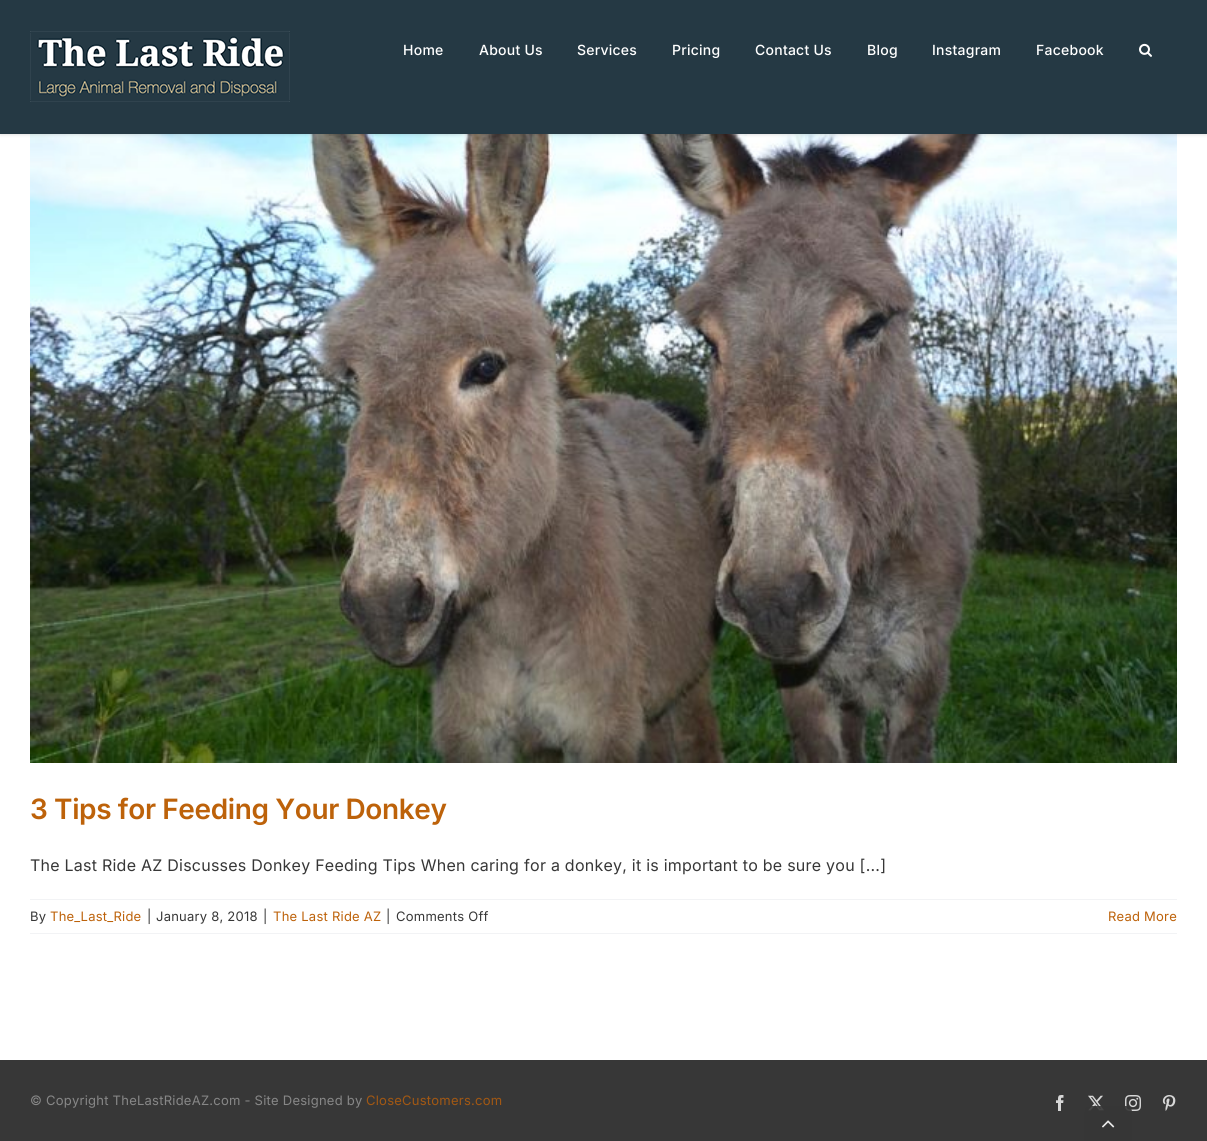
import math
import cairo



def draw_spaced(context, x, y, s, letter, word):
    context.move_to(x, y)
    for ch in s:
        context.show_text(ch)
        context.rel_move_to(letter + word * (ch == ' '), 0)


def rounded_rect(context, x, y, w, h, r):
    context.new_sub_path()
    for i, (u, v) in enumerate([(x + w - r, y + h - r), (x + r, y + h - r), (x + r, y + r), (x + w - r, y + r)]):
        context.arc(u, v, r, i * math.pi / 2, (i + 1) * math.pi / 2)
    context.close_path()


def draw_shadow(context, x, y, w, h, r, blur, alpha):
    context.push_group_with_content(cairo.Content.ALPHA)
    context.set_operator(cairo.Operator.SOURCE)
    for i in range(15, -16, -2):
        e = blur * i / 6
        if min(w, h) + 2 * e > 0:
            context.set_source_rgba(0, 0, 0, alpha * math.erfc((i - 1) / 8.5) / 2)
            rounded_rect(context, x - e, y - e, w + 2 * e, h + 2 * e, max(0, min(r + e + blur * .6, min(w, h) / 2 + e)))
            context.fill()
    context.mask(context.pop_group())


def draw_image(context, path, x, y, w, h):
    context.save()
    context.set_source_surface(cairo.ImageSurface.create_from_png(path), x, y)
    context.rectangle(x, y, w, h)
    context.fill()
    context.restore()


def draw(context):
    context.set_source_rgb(1, 1, 1)
    context.paint()
    draw_image(context, "images/3.png", 30, 134, 1147, 629)
    context.set_source_rgb(0, 0, 0)
    draw_shadow(context, 0, 1, 1207, 134, 0, 1.5, 0.12)
    context.set_source_rgb(37 / 255, 57 / 255, 68 / 255)
    context.rectangle(0, 0, 1207, 134)
    context.fill()
    draw_image(context, "images/1.png", 30, 31, 260, 71)
    draw_image(context, "images/2.png", 1139, 43, 13, 14)
    context.set_source_rgb(242 / 255, 243 / 255, 245 / 255)
    context.rectangle(30, 899, 1147, 1)
    context.fill()
    context.rectangle(30, 933, 1147, 1)
    context.fill()
    context.set_source_rgb(55 / 255, 55 / 255, 55 / 255)
    context.rectangle(0, 1060, 1207, 81)
    context.fill()
    draw_image(context, "images/4.png", 1056, 1095, 8, 16)
    draw_image(context, "images/5.png", 1088, 1095, 16, 16)
    draw_image(context, "images/6.png", 1125, 1095, 16, 16)
    draw_image(context, "images/7.png", 1162, 1095, 14, 16)
    context.set_source_rgba(55 / 255, 55 / 255, 55 / 255, 0.9)
    context.new_path()
    context.move_to(1090, 1106)
    context.line_to(1126, 1106)
    context.curve_to(1129.5, 1106, 1132, 1108.5, 1132, 1112)
    context.line_to(1132, 1141)
    context.line_to(1084, 1141)
    context.line_to(1084, 1112)
    context.curve_to(1084, 1108.5, 1086.5, 1106, 1090, 1106)
    context.close_path()
    context.fill()
    draw_image(context, "images/8.png", 1102, 1120, 13, 8)
    context.select_font_face("Inter Medium")
    context.set_font_size(14)
    context.set_source_rgb(1, 1, 1)
    draw_spaced(context, 403, 55, "Home", 0.25, 0)
    draw_spaced(context, 479, 55, "About Us", 0.25, 0)
    draw_spaced(context, 577, 55, "Services", 0.25, 0)
    draw_spaced(context, 672, 55, "Pricing", 0.25, 0)
    draw_spaced(context, 755, 55, "Contact Us", 0.25, 0)
    draw_spaced(context, 867, 55, "Blog", 0.25, 0)
    draw_spaced(context, 932, 55, "Instagram", 0.25, 0)
    draw_spaced(context, 1036, 55, "Facebook", 0.25, 0)
    context.select_font_face("Inter SemiBold")
    context.set_font_size(28)
    context.set_source_rgb(189 / 255, 98 / 255, 10 / 255)
    draw_spaced(context, 30, 819, "3 Tips for Feeding Your Donkey", -0.4, 0)
    context.select_font_face("Inter")
    context.set_font_size(16)
    context.set_source_rgb(55 / 255, 55 / 255, 55 / 255)
    draw_spaced(context, 30, 871, "The Last Ride AZ Discusses Donkey Feeding Tips When caring for a donkey, it is important to be sure you [...]", 0.24, 0)
    context.set_font_size(13)
    draw_spaced(context, 30, 921, "By", 0.24, 0)
    context.set_source_rgb(189 / 255, 98 / 255, 10 / 255)
    draw_spaced(context, 50, 921, "The_Last_Ride", 0.24, 0)
    context.set_source_rgb(55 / 255, 55 / 255, 55 / 255)
    draw_spaced(context, 147, 921, "|", 0.24, 0)
    draw_spaced(context, 156, 921, "January 8, 2018", 0.24, 0)
    draw_spaced(context, 263, 921, "|", 0.24, 0)
    context.set_source_rgb(189 / 255, 98 / 255, 10 / 255)
    draw_spaced(context, 273, 921, "The Last Ride AZ", 0.24, 0)
    context.set_source_rgb(55 / 255, 55 / 255, 55 / 255)
    draw_spaced(context, 386, 921, "|", 0.24, 0)
    draw_spaced(context, 396, 921, "Comments Off", 0.24, 0)
    context.set_source_rgb(189 / 255, 98 / 255, 10 / 255)
    draw_spaced(context, 1108, 921, "Read More", 0.24, 0)
    context.set_source_rgb(135 / 255, 135 / 255, 135 / 255)
    draw_spaced(context, 30, 1105, "© Copyright TheLastRideAZ.com - Site Designed by", 0.24, 0)
    context.set_source_rgb(162 / 255, 88 / 255, 19 / 255)
    draw_spaced(context, 366, 1105, "CloseCustomers.com", 0.24, 0)


surface = cairo.ImageSurface(cairo.Format.RGB24, 1207, 1141)
context = cairo.Context(surface)
options = cairo.FontOptions()
options.set_hint_metrics(cairo.HintMetrics.OFF)
options.set_hint_style(cairo.HintStyle.NONE)
context.set_font_options(options)
context.set_miter_limit(4)
draw(context)
surface.write_to_png("out.png")
